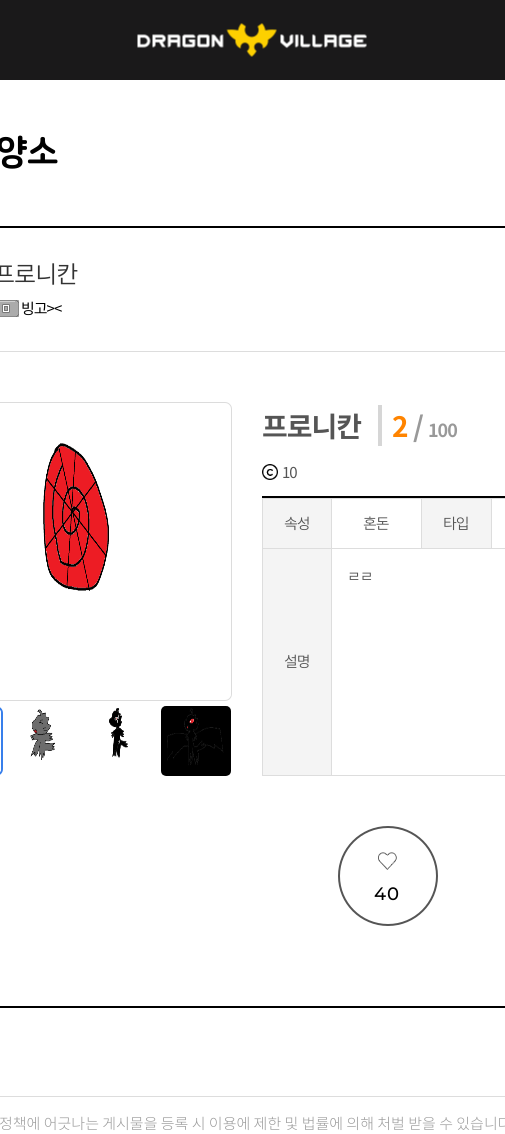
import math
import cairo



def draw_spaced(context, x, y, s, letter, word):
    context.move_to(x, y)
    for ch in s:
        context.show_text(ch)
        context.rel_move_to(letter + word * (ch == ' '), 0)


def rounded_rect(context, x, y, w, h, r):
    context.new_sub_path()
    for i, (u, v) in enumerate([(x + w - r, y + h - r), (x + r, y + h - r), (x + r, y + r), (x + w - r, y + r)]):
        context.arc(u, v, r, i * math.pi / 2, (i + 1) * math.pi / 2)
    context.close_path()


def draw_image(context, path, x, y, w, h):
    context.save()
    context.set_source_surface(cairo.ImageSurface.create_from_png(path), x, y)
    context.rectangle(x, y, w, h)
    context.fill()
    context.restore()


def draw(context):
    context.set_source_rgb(1, 1, 1)
    context.paint()
    context.set_source_rgb(26 / 255, 25 / 255, 26 / 255)
    context.rectangle(0, 0, 505, 80)
    context.fill()
    draw_image(context, "images/1.png", 137, 23, 230, 34)
    context.set_source_rgb(0, 0, 0)
    context.rectangle(0, 226, 505, 2)
    context.fill()
    context.rectangle(0, 1006, 505, 2)
    context.fill()
    context.set_source_rgb(221 / 255, 221 / 255, 221 / 255)
    context.rectangle(0, 351, 505, 1)
    context.fill()
    draw_image(context, "images/2.png", 0, 300, 19, 17)
    rounded_rect(context, -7.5, 402.5, 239, 298, 6.5)
    context.set_source_rgb(220 / 255, 220 / 255, 220 / 255)
    context.set_line_width(1)
    context.stroke()
    draw_image(context, "images/3.png", 43, 443, 188, 253)
    rounded_rect(context, -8, 707, 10, 68, 6)
    context.set_source_rgb(56 / 255, 127 / 255, 235 / 255)
    context.set_line_width(2)
    context.stroke()
    draw_image(context, "images/4.png", 0, 710, 1, 62)
    draw_image(context, "images/5.png", 30, 709, 25, 51)
    draw_image(context, "images/6.png", 109, 708, 19, 50)
    draw_image(context, "images/7.png", 161, 706, 70, 70)
    context.set_source_rgb(214 / 255, 214 / 255, 214 / 255)
    context.rectangle(378, 405, 4, 41)
    context.fill()
    draw_image(context, "images/8.png", 262, 464, 16, 16)
    context.set_source_rgb(0, 0, 0)
    context.rectangle(262, 496, 243, 2)
    context.fill()
    context.set_source_rgb(221 / 255, 221 / 255, 221 / 255)
    context.rectangle(262, 775, 243, 1)
    context.fill()
    context.set_source_rgb(244 / 255, 244 / 255, 244 / 255)
    context.rectangle(263, 499, 68, 49)
    context.fill()
    context.set_source_rgb(221 / 255, 221 / 255, 221 / 255)
    context.rectangle(262, 498, 243, 1)
    context.fill()
    context.rectangle(331, 498, 1, 50)
    context.fill()
    context.rectangle(262, 498, 1, 50)
    context.fill()
    context.rectangle(421, 498, 1, 50)
    context.fill()
    context.set_source_rgb(244 / 255, 244 / 255, 244 / 255)
    context.rectangle(422, 499, 69, 49)
    context.fill()
    context.set_source_rgb(221 / 255, 221 / 255, 221 / 255)
    context.rectangle(491, 498, 1, 50)
    context.fill()
    context.set_source_rgb(244 / 255, 244 / 255, 244 / 255)
    context.rectangle(263, 549, 68, 226)
    context.fill()
    context.set_source_rgb(221 / 255, 221 / 255, 221 / 255)
    context.rectangle(262, 548, 243, 1)
    context.fill()
    context.rectangle(331, 548, 1, 227)
    context.fill()
    context.rectangle(262, 548, 1, 227)
    context.fill()
    draw_image(context, "images/9.png", 378, 852, 19, 18)
    context.arc(388, 876, 49, 0, 2 * math.pi)
    context.set_source_rgb(85 / 255, 85 / 255, 85 / 255)
    context.stroke()
    context.rectangle(-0.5, 1096.5, 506, 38)
    context.set_source_rgb(221 / 255, 221 / 255, 221 / 255)
    context.set_line_width(1)
    context.stroke()
    context.select_font_face("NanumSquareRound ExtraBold")
    context.set_font_size(35)
    context.set_source_rgb(0, 0, 0)
    draw_spaced(context, -4, 163, "양소", -1, 0)
    context.select_font_face("Noto Sans KR Light")
    context.set_font_size(24)
    context.set_source_rgb(51 / 255, 51 / 255, 51 / 255)
    draw_spaced(context, -7, 283, "프로니칸", -1, 0)
    context.select_font_face("Noto Sans KR")
    context.set_font_size(15)
    context.set_source_rgb(0, 0, 0)
    draw_spaced(context, 21, 314, "빙고><", -1, 0)
    context.select_font_face("Noto Sans KR", cairo.FontSlant.NORMAL, cairo.FontWeight.BOLD)
    context.set_font_size(28)
    context.set_source_rgb(85 / 255, 85 / 255, 85 / 255)
    draw_spaced(context, 262, 437, "프로니칸", -1, 0)
    context.set_source_rgb(1, 132 / 255, 0)
    draw_spaced(context, 392, 437, "2", -1, 0)
    context.set_source_rgb(153 / 255, 153 / 255, 153 / 255)
    draw_spaced(context, 413, 437, "/", -1, 0)
    context.set_font_size(18)
    draw_spaced(context, 428, 437, "100", -1, 0)
    context.select_font_face("Noto Sans KR")
    context.set_font_size(15)
    context.set_source_rgb(85 / 255, 85 / 255, 85 / 255)
    draw_spaced(context, 282, 478, "10", -1, 0)
    context.select_font_face("Noto Sans KR Light")
    draw_spaced(context, 284, 529, "속성", -1, 0)
    draw_spaced(context, 363, 529, "혼돈", -1, 0)
    draw_spaced(context, 443, 529, "타입", -1, 0)
    draw_spaced(context, 347, 582, "ㄹㄹ", -1, 0)
    draw_spaced(context, 284, 667, "설명", -1, 0)
    context.select_font_face("Montserrat Medium")
    context.set_font_size(18)
    context.set_source_rgb(0, 0, 0)
    draw_spaced(context, 374, 900, "40", 1, 0)
    context.select_font_face("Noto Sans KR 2 Light")
    context.set_font_size(15)
    context.set_source_rgb(153 / 255, 153 / 255, 153 / 255)
    context.move_to(-1, 1129)
    context.show_text("정책에 어긋나는 게시물을 등록 시 이용에 제한 및 법률에 의해 처벌 받을 수 있습니다")


surface = cairo.ImageSurface(cairo.Format.RGB24, 505, 1134)
context = cairo.Context(surface)
options = cairo.FontOptions()
options.set_hint_metrics(cairo.HintMetrics.OFF)
options.set_hint_style(cairo.HintStyle.NONE)
context.set_font_options(options)
context.set_miter_limit(4)
draw(context)
surface.write_to_png("out.png")
